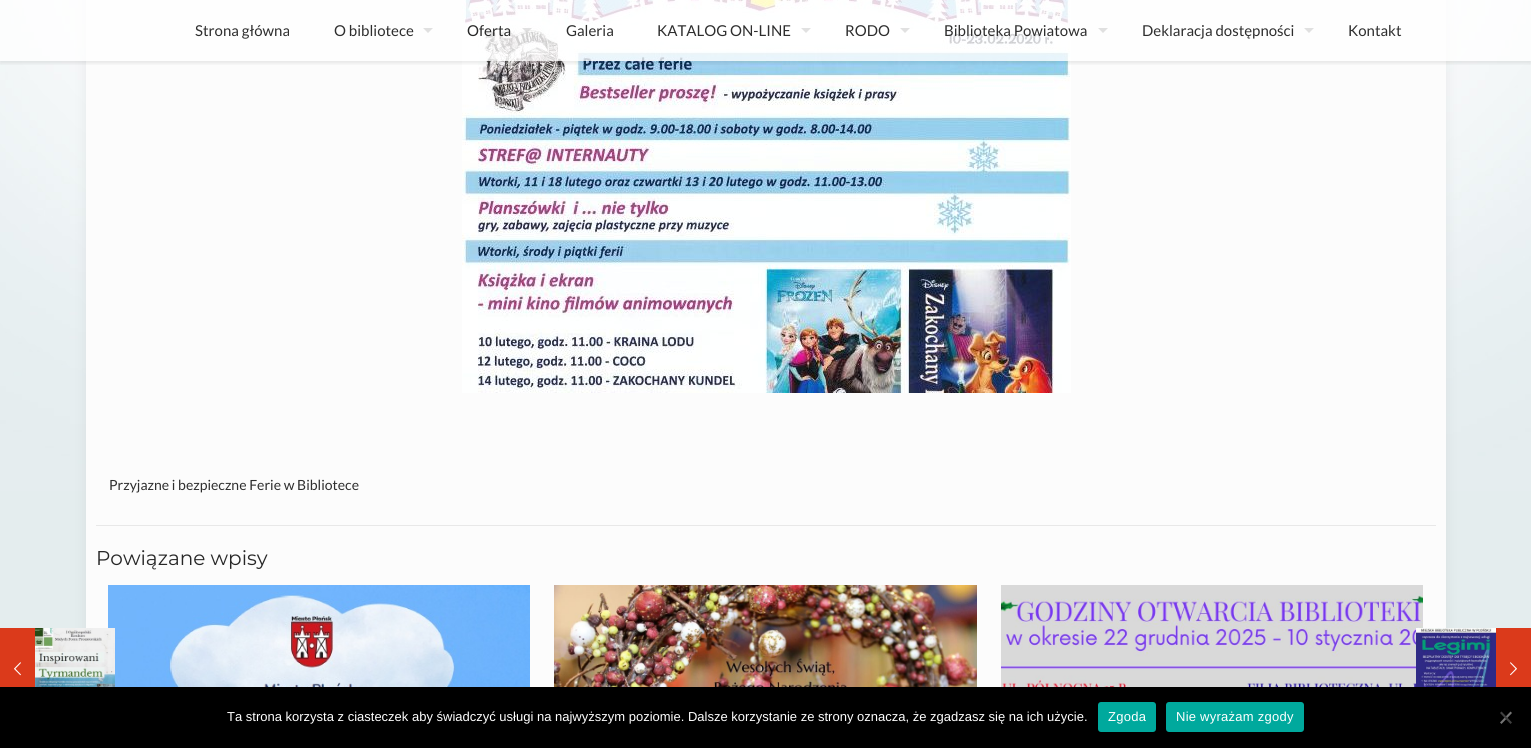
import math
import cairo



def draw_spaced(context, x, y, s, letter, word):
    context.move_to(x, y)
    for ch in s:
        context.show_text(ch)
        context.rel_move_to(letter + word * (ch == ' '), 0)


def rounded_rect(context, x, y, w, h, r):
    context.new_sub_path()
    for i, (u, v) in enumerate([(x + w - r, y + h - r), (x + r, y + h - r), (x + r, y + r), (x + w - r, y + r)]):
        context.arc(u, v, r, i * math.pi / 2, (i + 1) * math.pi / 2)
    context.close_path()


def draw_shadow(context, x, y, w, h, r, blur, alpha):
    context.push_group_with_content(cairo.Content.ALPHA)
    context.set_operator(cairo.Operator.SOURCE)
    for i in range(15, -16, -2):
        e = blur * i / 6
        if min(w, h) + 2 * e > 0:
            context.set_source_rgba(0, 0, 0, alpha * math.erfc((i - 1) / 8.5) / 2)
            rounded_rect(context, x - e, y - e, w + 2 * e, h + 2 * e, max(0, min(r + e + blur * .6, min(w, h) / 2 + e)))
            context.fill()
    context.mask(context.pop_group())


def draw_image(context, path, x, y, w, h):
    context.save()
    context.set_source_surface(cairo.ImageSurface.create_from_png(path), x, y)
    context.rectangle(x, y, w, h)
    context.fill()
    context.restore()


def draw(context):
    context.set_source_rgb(228 / 255, 237 / 255, 238 / 255)
    context.paint()
    draw_image(context, "images/1.png", 0, 0, 1531, 491)
    context.set_source_rgb(0, 0, 0)
    draw_shadow(context, 86, -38, 1360, 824, 15, 7.5, 0.06)
    context.set_source_rgb(252 / 255, 252 / 255, 252 / 255)
    context.rectangle(86, 0, 1360, 687)
    context.fill()
    draw_image(context, "images/2.png", 462, 0, 609, 393)
    context.save()
    context.rectangle(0, 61, 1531, 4)
    context.clip()
    context.set_source_rgb(0, 0, 0)
    draw_shadow(context, 0, 2, 1531, 61, 0, 2.5, 0.1)
    context.restore()
    context.set_source_rgba(1, 1, 1, 0.78)
    context.rectangle(0, 0, 1531, 61)
    context.fill()
    context.set_source_rgb(224 / 255, 224 / 255, 224 / 255)
    context.new_path()
    context.move_to(423, 28)
    context.line_to(433, 28)
    context.line_to(428, 33)
    context.close_path()
    context.fill()
    context.set_source_rgba(204 / 255, 204 / 255, 204 / 255, 0.58)
    context.new_path()
    context.move_to(522, 28)
    context.line_to(532, 28)
    context.line_to(527, 33)
    context.close_path()
    context.fill()
    context.set_source_rgb(225 / 255, 225 / 255, 225 / 255)
    context.new_path()
    context.move_to(801, 28)
    context.line_to(811, 28)
    context.line_to(806, 33)
    context.close_path()
    context.fill()
    context.new_path()
    context.move_to(900, 28)
    context.line_to(910, 28)
    context.line_to(905, 33)
    context.close_path()
    context.fill()
    context.set_source_rgb(224 / 255, 224 / 255, 224 / 255)
    context.new_path()
    context.move_to(1098, 28)
    context.line_to(1108, 28)
    context.line_to(1103, 33)
    context.close_path()
    context.fill()
    context.new_path()
    context.move_to(1304, 28)
    context.line_to(1314, 28)
    context.line_to(1309, 33)
    context.close_path()
    context.fill()
    context.set_source_rgb(232 / 255, 232 / 255, 232 / 255)
    context.rectangle(96, 525, 1340, 1)
    context.fill()
    draw_image(context, "images/3.png", 108, 585, 422, 102)
    draw_image(context, "images/4.png", 554, 585, 423, 102)
    draw_image(context, "images/5.png", 1001, 585, 422, 102)
    context.set_source_rgb(219 / 255, 58 / 255, 27 / 255)
    context.rectangle(0, 628, 35, 59)
    context.fill()
    draw_image(context, "images/6.png", 14, 662, 7, 14)
    draw_image(context, "images/7.png", 35, 628, 80, 59)
    draw_image(context, "images/8.png", 1416, 628, 80, 59)
    context.rectangle(1496, 628, 35, 59)
    context.fill()
    draw_image(context, "images/9.png", 1510, 662, 7, 14)
    context.set_source_rgb(0, 0, 0)
    context.rectangle(0, 687, 1531, 61)
    context.fill()
    context.set_source_rgb(0, 169 / 255, 157 / 255)
    rounded_rect(context, 1098, 702, 58, 30, 3)
    context.fill()
    rounded_rect(context, 1166, 702, 138, 30, 3)
    context.fill()
    context.set_source_rgb(117 / 255, 117 / 255, 117 / 255)
    context.new_path()
    context.move_to(1510.5, 711.5)
    context.line_to(1512, 713)
    context.line_to(1501.5, 724)
    context.line_to(1500, 722.5)
    context.close_path()
    context.fill()
    context.set_source_rgb(64 / 255, 64 / 255, 64 / 255)
    context.new_path()
    context.move_to(1500, 713)
    context.line_to(1501.5, 711.5)
    context.line_to(1512, 722.5)
    context.line_to(1510.5, 724)
    context.close_path()
    context.fill()
    context.select_font_face("Lato")
    context.set_font_size(15)
    context.set_source_rgb(46 / 255, 46 / 255, 46 / 255)
    context.move_to(195, 36)
    context.show_text("Strona główna")
    context.move_to(334, 36)
    context.show_text("O bibliotece")
    context.set_source_rgb(39 / 255, 39 / 255, 39 / 255)
    context.move_to(467, 36)
    context.show_text("Oferta")
    context.set_source_rgb(46 / 255, 46 / 255, 46 / 255)
    context.move_to(566, 36)
    context.show_text("Galeria")
    context.move_to(657, 36)
    context.show_text("KATALOG ON-LINE")
    context.move_to(845, 36)
    context.show_text("RODO")
    context.move_to(944, 36)
    context.show_text("Biblioteka Powiatowa")
    context.move_to(1142, 36)
    context.show_text("Deklaracja dostępności")
    context.move_to(1348, 36)
    context.show_text("Kontakt")
    context.set_font_size(14)
    context.move_to(109, 490)
    context.show_text("Przyjazne i bezpieczne Ferie w Bibliotece")
    context.select_font_face("Montserrat")
    context.set_font_size(20)
    context.set_source_rgb(39 / 255, 39 / 255, 39 / 255)
    context.move_to(96, 565)
    context.show_text("Powiązane wpisy")
    context.select_font_face("Liberation Sans")
    context.set_font_size(13)
    context.set_source_rgb(1, 1, 1)
    context.move_to(227, 721)
    context.show_text("Ta strona korzysta z ciasteczek aby świadczyć usługi na najwyższym poziomie. Dalsze korzystanie ze strony oznacza, że zgadzasz się na ich użycie.")
    draw_spaced(context, 1108, 721, "Zgoda", 0.25, 0)
    draw_spaced(context, 1176, 721, "Nie wyrażam zgody", 0.25, 0)


surface = cairo.ImageSurface(cairo.Format.RGB24, 1531, 748)
context = cairo.Context(surface)
options = cairo.FontOptions()
options.set_hint_metrics(cairo.HintMetrics.OFF)
options.set_hint_style(cairo.HintStyle.NONE)
context.set_font_options(options)
context.set_miter_limit(4)
draw(context)
surface.write_to_png("out.png")
